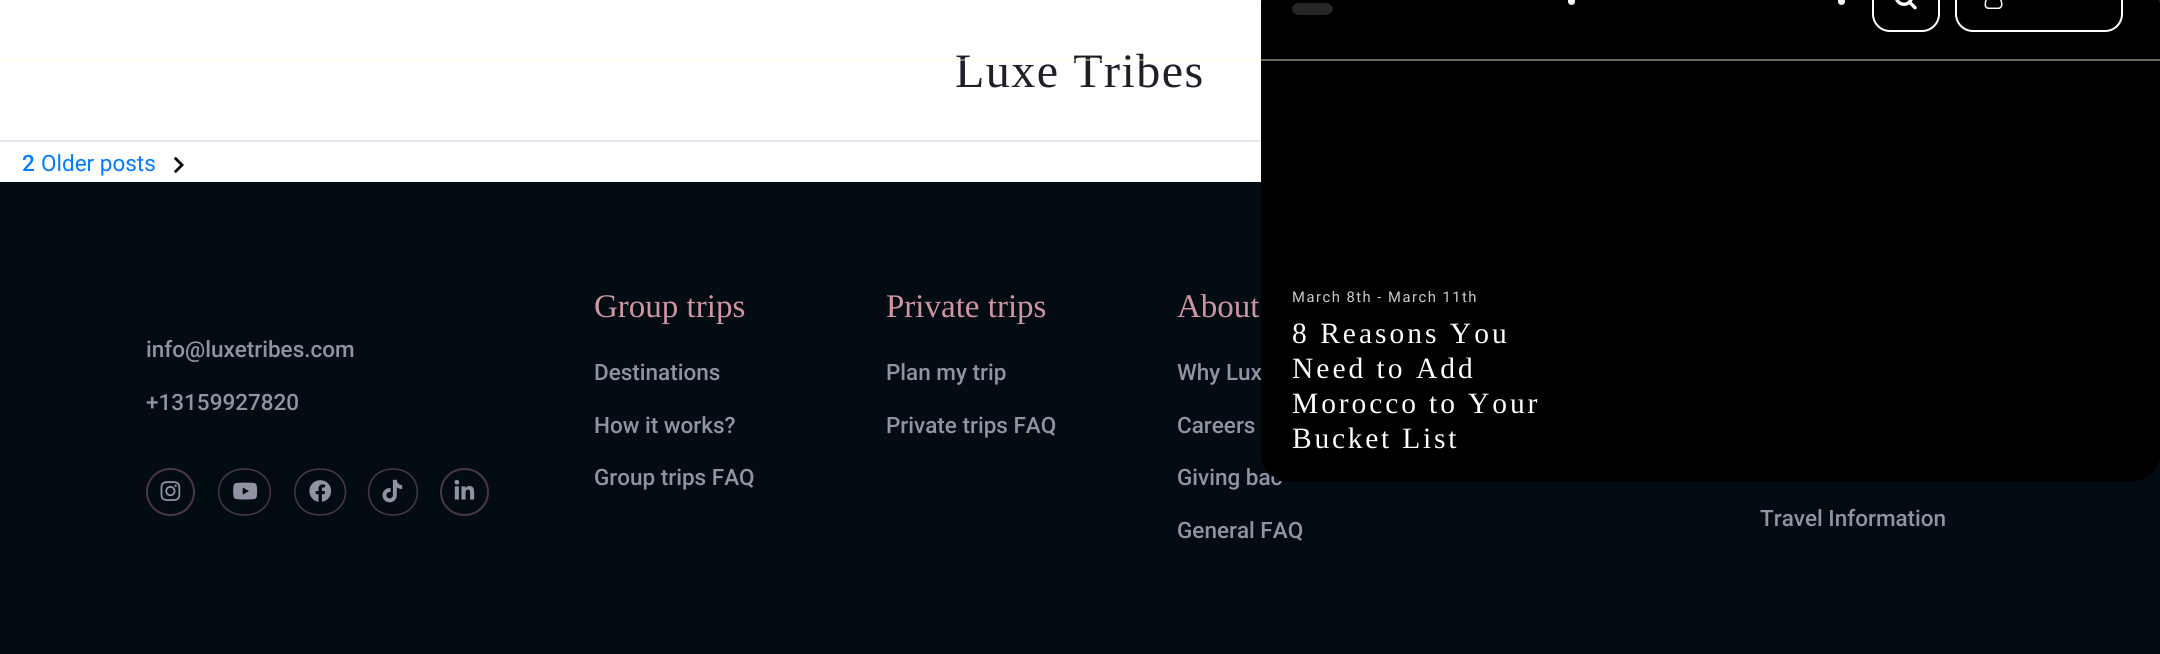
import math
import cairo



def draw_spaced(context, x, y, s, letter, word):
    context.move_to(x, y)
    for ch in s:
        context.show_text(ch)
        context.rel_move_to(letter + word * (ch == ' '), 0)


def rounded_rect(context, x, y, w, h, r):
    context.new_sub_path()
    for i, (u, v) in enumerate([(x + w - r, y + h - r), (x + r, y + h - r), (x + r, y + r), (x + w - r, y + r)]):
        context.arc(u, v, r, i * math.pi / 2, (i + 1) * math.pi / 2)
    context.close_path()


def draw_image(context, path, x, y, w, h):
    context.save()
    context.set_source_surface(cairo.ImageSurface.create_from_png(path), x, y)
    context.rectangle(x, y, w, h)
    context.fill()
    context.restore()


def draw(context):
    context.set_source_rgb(1, 1, 1)
    context.paint()
    context.set_source_rgb(227 / 255, 228 / 255, 237 / 255)
    context.rectangle(0, 140, 1261, 2)
    context.fill()
    draw_image(context, "images/3.png", 173, 156, 11, 18)
    context.set_source_rgb(3 / 255, 12 / 255, 19 / 255)
    context.rectangle(0, 182, 2160, 472)
    context.fill()
    rounded_rect(context, 147, 469, 47, 46, 23)
    context.set_source_rgb(73 / 255, 56 / 255, 66 / 255)
    context.stroke()
    draw_image(context, "images/4.png", 160, 481, 21, 20)
    context.new_path()
    context.move_to(244.5, 469)
    context.curve_to(279, 469, 279, 515, 244.5, 515)
    context.curve_to(210, 515, 210, 469, 244.5, 469)
    context.close_path()
    context.set_line_width(1.5)
    context.stroke()
    draw_image(context, "images/5.png", 233, 482, 25, 18)
    context.new_path()
    context.move_to(320, 469)
    context.curve_to(354, 469, 354, 515, 320, 515)
    context.curve_to(286.5, 515, 286.5, 469, 320, 469)
    context.close_path()
    context.stroke()
    draw_image(context, "images/6.png", 309, 480, 23, 22)
    context.new_path()
    context.move_to(393, 469)
    context.curve_to(425.5, 469, 425.5, 515, 393, 515)
    context.curve_to(360.5, 515, 360.5, 469, 393, 469)
    context.close_path()
    context.stroke()
    draw_image(context, "images/7.png", 382, 479, 21, 24)
    rounded_rect(context, 441, 469, 47, 46, 23)
    context.set_line_width(2)
    context.stroke()
    draw_image(context, "images/8.png", 454, 479, 21, 21)
    context.select_font_face("Liberation Serif")
    context.set_font_size(48)
    context.set_source_rgb(31 / 255, 32 / 255, 39 / 255)
    draw_spaced(context, 955, 87, "Luxe Tribes", 1.5, 0)
    context.select_font_face("Roboto Medium")
    context.set_font_size(22.5)
    context.set_source_rgb(0, 123 / 255, 1)
    context.move_to(22, 171)
    context.show_text("2")
    context.select_font_face("Roboto")
    context.move_to(41, 171)
    context.show_text("Older posts")
    context.select_font_face("Roboto Medium")
    context.set_source_rgb(145 / 255, 147 / 255, 163 / 255)
    context.move_to(146, 357)
    context.show_text("info@luxetribes.com")
    context.move_to(146, 410)
    context.show_text("+13159927820")
    context.select_font_face("Liberation Serif")
    context.set_font_size(33)
    context.set_source_rgb(207 / 255, 149 / 255, 162 / 255)
    context.move_to(594, 317)
    context.show_text("Group trips")
    context.select_font_face("Roboto Medium")
    context.set_font_size(22.5)
    context.set_source_rgb(145 / 255, 147 / 255, 163 / 255)
    context.move_to(594, 380)
    context.show_text("Destinations")
    context.move_to(594, 433)
    context.show_text("How it works?")
    context.move_to(594, 485)
    context.show_text("Group trips FAQ")
    context.select_font_face("Liberation Serif")
    context.set_font_size(33)
    context.set_source_rgb(207 / 255, 149 / 255, 162 / 255)
    context.move_to(886, 317)
    context.show_text("Private trips")
    context.select_font_face("Roboto Medium")
    context.set_font_size(22.5)
    context.set_source_rgb(145 / 255, 147 / 255, 163 / 255)
    context.move_to(886, 380)
    context.show_text("Plan my trip")
    context.move_to(886, 433)
    context.show_text("Private trips FAQ")
    context.select_font_face("Liberation Serif")
    context.set_font_size(33)
    context.set_source_rgb(207 / 255, 149 / 255, 162 / 255)
    context.move_to(1177, 317)
    context.show_text("About")
    context.select_font_face("Roboto Medium")
    context.set_font_size(22.5)
    context.set_source_rgb(145 / 255, 147 / 255, 163 / 255)
    context.move_to(1177, 380)
    context.show_text("Why Lux")
    context.move_to(1177, 433)
    context.show_text("Careers")
    context.move_to(1177, 485)
    context.show_text("Giving bac")
    context.set_source_rgb(0, 0, 0)
    context.new_path()
    context.move_to(1292, -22)
    context.line_to(2129, -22)
    context.curve_to(2146, -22, 2160, -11, 2160, 3)
    context.line_to(2160, 456)
    context.curve_to(2160, 470, 2146, 482, 2129, 482)
    context.line_to(1292, 482)
    context.curve_to(1275, 482, 1261, 470, 1261, 456)
    context.line_to(1261, 3)
    context.curve_to(1261, -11, 1275, -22, 1292, -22)
    context.close_path()
    context.fill()
    context.set_source_rgb(1, 1, 1)
    rounded_rect(context, 1838, -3, 7, 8, 3.5)
    context.fill()
    rounded_rect(context, 1568, -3, 7, 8, 3.5)
    context.fill()
    rounded_rect(context, 1956, -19, 166, 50, 17)
    context.stroke()
    draw_image(context, "images/2.png", 1984, 0, 19, 9)
    rounded_rect(context, 1873, -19, 66, 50, 17)
    context.stroke()
    draw_image(context, "images/1.png", 1895, 0, 22, 10)
    context.set_source_rgba(1, 1, 225 / 255, 0.4)
    context.rectangle(0, 59, 2160, 2)
    context.fill()
    context.set_source_rgb(38 / 255, 38 / 255, 38 / 255)
    context.new_path()
    context.move_to(1299, 3)
    context.line_to(1325, 3)
    context.curve_to(1329, 3, 1333, 6, 1333, 9)
    context.curve_to(1333, 12, 1329, 15, 1325, 15)
    context.line_to(1299, 15)
    context.curve_to(1295, 15, 1292, 12, 1292, 9)
    context.curve_to(1292, 6, 1295, 3, 1299, 3)
    context.close_path()
    context.fill()
    context.select_font_face("Liberation Serif")
    context.set_font_size(29.5)
    context.set_source_rgb(1, 1, 1)
    draw_spaced(context, 1292, 448, "Bucket List", 2.75, 0)
    draw_spaced(context, 1292, 413, "Morocco to Your", 2.9, 0)
    draw_spaced(context, 1292, 378, "Need to Add", 3, 0)
    draw_spaced(context, 1292, 343, "8 Reasons You", 3, 0)
    context.select_font_face("Roboto")
    context.set_font_size(14.75)
    context.set_source_rgb(204 / 255, 204 / 255, 204 / 255)
    draw_spaced(context, 1292, 302, "March 8th - March 11th", 1.5, 0)
    context.select_font_face("Roboto Medium")
    context.set_font_size(22.5)
    context.set_source_rgb(145 / 255, 147 / 255, 163 / 255)
    context.move_to(1177, 538)
    context.show_text("General FAQ")
    context.move_to(1760, 526)
    context.show_text("Travel Information")


surface = cairo.ImageSurface(cairo.Format.RGB24, 2160, 654)
context = cairo.Context(surface)
options = cairo.FontOptions()
options.set_hint_metrics(cairo.HintMetrics.OFF)
options.set_hint_style(cairo.HintStyle.NONE)
context.set_font_options(options)
context.set_miter_limit(4)
draw(context)
surface.write_to_png("out.png")
